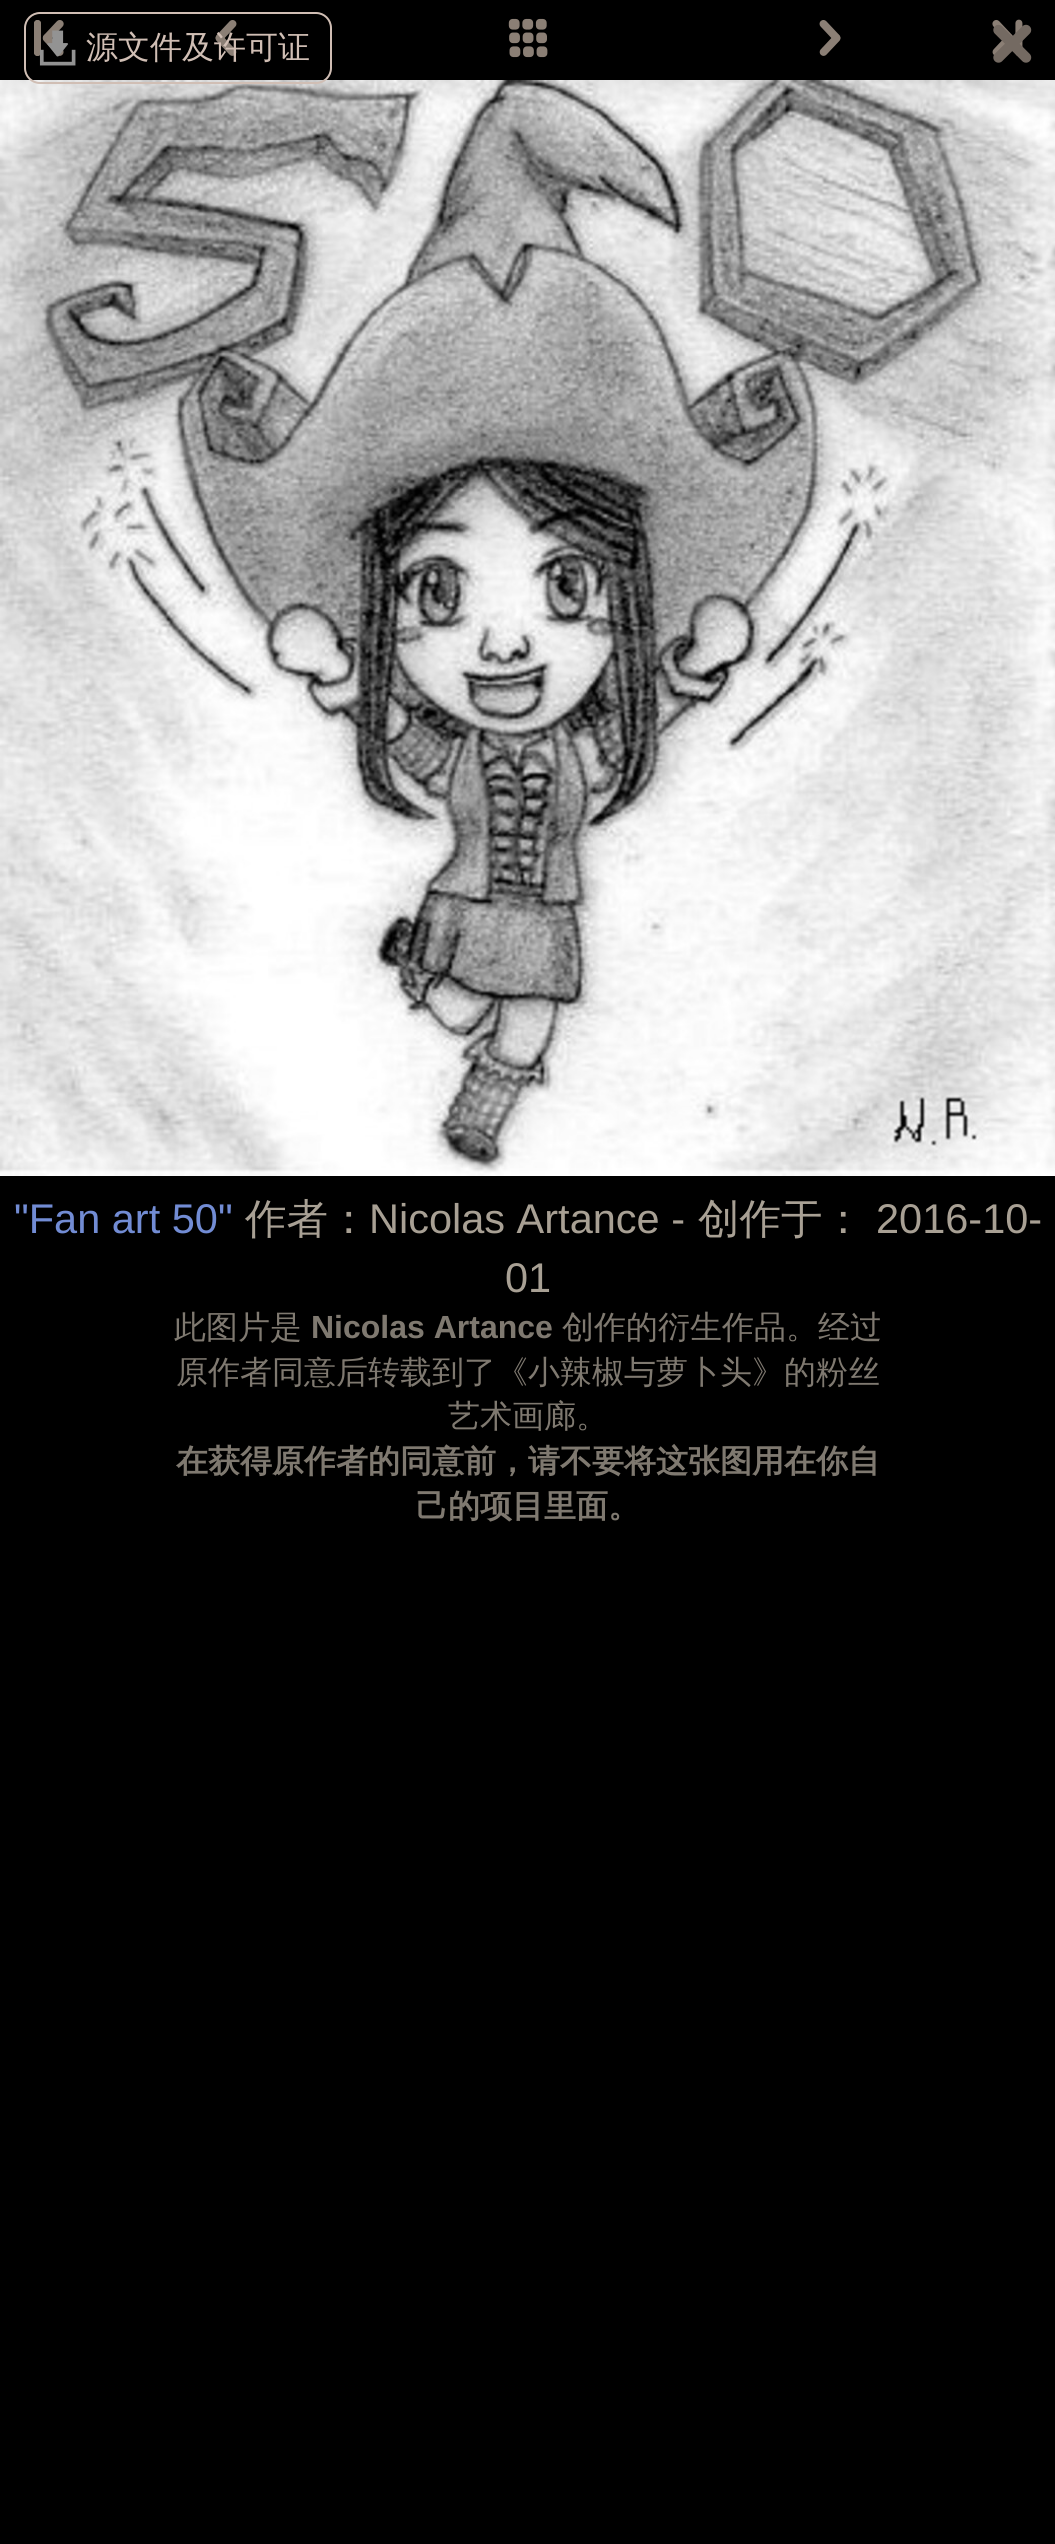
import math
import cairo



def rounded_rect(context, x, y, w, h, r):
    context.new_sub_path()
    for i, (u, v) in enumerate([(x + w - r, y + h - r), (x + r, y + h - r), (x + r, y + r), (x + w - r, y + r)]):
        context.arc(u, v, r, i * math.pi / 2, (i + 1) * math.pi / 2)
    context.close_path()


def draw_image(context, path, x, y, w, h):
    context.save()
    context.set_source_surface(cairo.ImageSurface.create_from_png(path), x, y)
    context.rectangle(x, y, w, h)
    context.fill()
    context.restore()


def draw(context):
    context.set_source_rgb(0, 0, 0)
    context.paint()
    draw_image(context, "images/1.png", 34, 20, 30, 36)
    draw_image(context, "images/2.png", 215, 20, 22, 36)
    draw_image(context, "images/3.png", 508, 18, 40, 40)
    draw_image(context, "images/4.png", 819, 20, 22, 36)
    draw_image(context, "images/5.png", 992, 19, 31, 38)
    draw_image(context, "images/6.png", 39, 30, 37, 36)
    draw_image(context, "images/7.png", 0, 80, 1055, 1096)
    rounded_rect(context, 25, 13, 306, 70, 15)
    context.set_source_rgb(208 / 255, 190 / 255, 180 / 255)
    context.stroke()
    context.new_path()
    context.move_to(998.5, 30)
    context.line_to(1026, 57.5)
    context.move_to(1026, 30)
    context.line_to(998.5, 57.5)
    context.set_source_rgb(116 / 255, 106 / 255, 98 / 255)
    context.set_line_width(10.4)
    context.set_line_cap(cairo.LineCap.ROUND)
    context.stroke()
    context.select_font_face("WenQuanYi Zen Hei Medium")
    context.set_font_size(32)
    context.set_source_rgb(208 / 255, 190 / 255, 180 / 255)
    context.move_to(86, 58)
    context.show_text("源文件及许可证")
    context.select_font_face("Liberation Sans")
    context.set_font_size(41.5)
    context.set_source_rgb(114 / 255, 140 / 255, 212 / 255)
    context.move_to(14, 1233)
    context.show_text("\"Fan art 50\"")
    context.select_font_face("WenQuanYi Zen Hei Medium")
    context.set_source_rgb(168 / 255, 160 / 255, 148 / 255)
    context.move_to(245, 1233)
    context.show_text("作者：")
    context.select_font_face("Liberation Sans")
    context.move_to(369, 1233)
    context.show_text("Nicolas Artance -")
    context.select_font_face("WenQuanYi Zen Hei Medium")
    context.move_to(698, 1233)
    context.show_text("创作于：")
    context.select_font_face("Liberation Sans")
    context.move_to(876, 1233)
    context.show_text("2016-10-")
    context.move_to(505, 1292)
    context.show_text("01")
    context.select_font_face("WenQuanYi Zen Hei Medium")
    context.set_font_size(32)
    context.set_source_rgb(127 / 255, 121 / 255, 112 / 255)
    context.move_to(174, 1338)
    context.show_text("此图片是")
    context.select_font_face("Liberation Sans", cairo.FontSlant.NORMAL, cairo.FontWeight.BOLD)
    context.move_to(311, 1338)
    context.show_text("Nicolas Artance")
    context.select_font_face("WenQuanYi Zen Hei Medium")
    context.move_to(562, 1338)
    context.show_text("创作的衍生作品。经过")
    context.move_to(176, 1383)
    context.show_text("原作者同意后转载到了《小辣椒与萝卜头》的粉丝")
    context.move_to(448, 1427)
    context.show_text("艺术画廊。")
    context.select_font_face("WenQuanYi Zen Hei", cairo.FontSlant.NORMAL, cairo.FontWeight.BOLD)
    context.move_to(176, 1472)
    context.show_text("在获得原作者的同意前，请不要将这张图用在你自")
    context.move_to(416, 1517)
    context.show_text("己的项目里面。")


surface = cairo.ImageSurface(cairo.Format.RGB24, 1055, 2544)
context = cairo.Context(surface)
options = cairo.FontOptions()
options.set_hint_metrics(cairo.HintMetrics.OFF)
options.set_hint_style(cairo.HintStyle.NONE)
context.set_font_options(options)
context.set_miter_limit(4)
draw(context)
surface.write_to_png("out.png")
